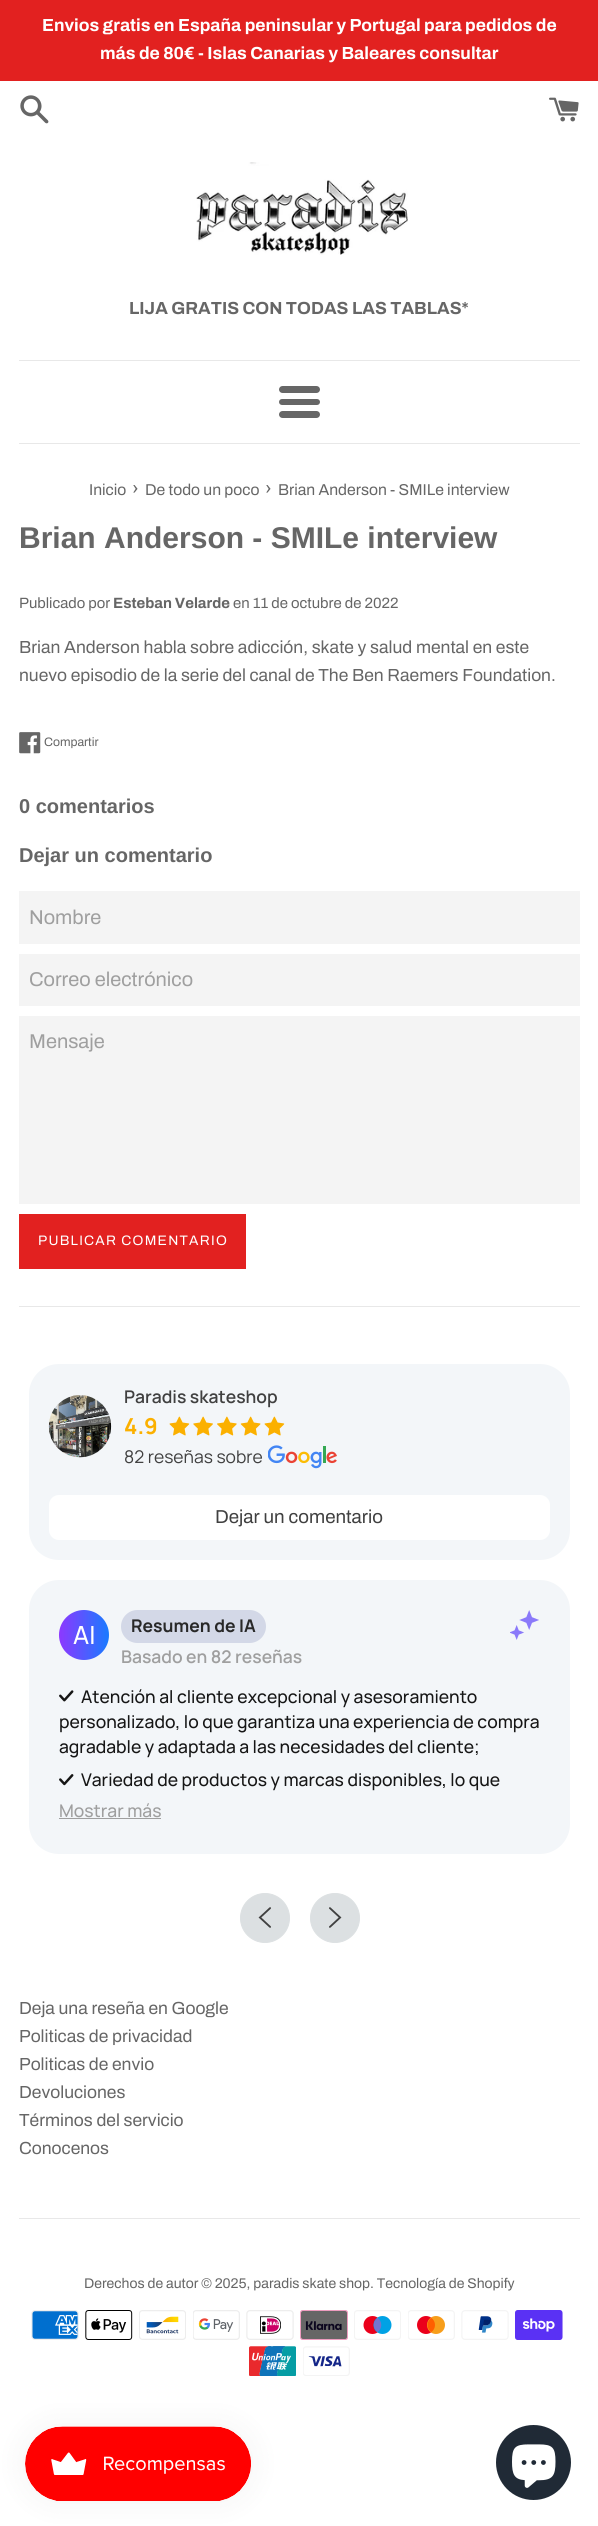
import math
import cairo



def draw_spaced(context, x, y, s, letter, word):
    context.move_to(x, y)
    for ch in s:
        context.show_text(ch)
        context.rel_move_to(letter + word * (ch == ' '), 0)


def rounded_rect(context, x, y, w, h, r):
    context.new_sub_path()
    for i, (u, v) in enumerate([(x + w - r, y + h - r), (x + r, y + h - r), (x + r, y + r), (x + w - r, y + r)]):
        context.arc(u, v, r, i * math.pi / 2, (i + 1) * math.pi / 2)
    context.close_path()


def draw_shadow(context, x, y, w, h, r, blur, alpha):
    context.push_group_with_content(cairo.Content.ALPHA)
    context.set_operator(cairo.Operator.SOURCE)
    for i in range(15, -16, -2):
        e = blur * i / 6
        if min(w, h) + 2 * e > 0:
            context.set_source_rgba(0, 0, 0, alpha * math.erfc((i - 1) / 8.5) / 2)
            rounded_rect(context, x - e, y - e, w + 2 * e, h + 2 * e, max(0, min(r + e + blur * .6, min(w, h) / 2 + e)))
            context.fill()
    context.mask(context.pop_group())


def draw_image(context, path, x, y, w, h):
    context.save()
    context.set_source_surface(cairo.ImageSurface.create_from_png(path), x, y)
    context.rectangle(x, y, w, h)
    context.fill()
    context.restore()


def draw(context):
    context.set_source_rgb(1, 1, 1)
    context.paint()
    context.set_source_rgb(226 / 255, 33 / 255, 32 / 255)
    context.rectangle(0, 0, 598, 81)
    context.fill()
    draw_image(context, "images/1.png", 20, 95, 29, 29)
    draw_image(context, "images/2.png", 549, 97, 30, 25)
    draw_image(context, "images/3.png", 196, 162, 212, 93)
    context.set_source_rgb(232 / 255, 232 / 255, 232 / 255)
    context.rectangle(19, 360, 561, 1)
    context.fill()
    context.set_source_rgb(102 / 255, 102 / 255, 102 / 255)
    rounded_rect(context, 279, 386, 41, 7, 3.5)
    context.fill()
    rounded_rect(context, 279, 399, 41, 6, 3)
    context.fill()
    rounded_rect(context, 279, 411, 41, 7, 3.5)
    context.fill()
    context.set_source_rgb(232 / 255, 232 / 255, 232 / 255)
    context.rectangle(19, 443, 561, 1)
    context.fill()
    draw_image(context, "images/4.png", 19, 732, 22, 22)
    context.set_source_rgb(244 / 255, 244 / 255, 244 / 255)
    context.rectangle(19, 891, 561, 53)
    context.fill()
    context.rectangle(19, 954, 561, 52)
    context.fill()
    context.rectangle(19, 1016, 561, 188)
    context.fill()
    context.set_source_rgb(226 / 255, 33 / 255, 32 / 255)
    context.rectangle(19, 1214, 227, 55)
    context.fill()
    context.set_source_rgb(232 / 255, 232 / 255, 232 / 255)
    context.rectangle(19, 1306, 561, 1)
    context.fill()
    context.set_source_rgb(243 / 255, 246 / 255, 249 / 255)
    rounded_rect(context, 29, 1364, 541, 196, 30)
    context.fill()
    draw_image(context, "images/5.png", 48, 1395, 64, 63)
    draw_image(context, "images/6.png", 169, 1416, 21, 20)
    draw_image(context, "images/7.png", 193, 1416, 20, 20)
    draw_image(context, "images/8.png", 217, 1416, 20, 20)
    draw_image(context, "images/9.png", 240, 1416, 21, 20)
    draw_image(context, "images/6.png", 264, 1416, 21, 20)
    draw_image(context, "images/10.png", 268, 1445, 69, 24)
    context.set_source_rgb(1, 1, 1)
    rounded_rect(context, 49, 1495, 501, 45, 10)
    context.fill()
    context.set_source_rgb(243 / 255, 246 / 255, 249 / 255)
    rounded_rect(context, 29, 1580, 541, 274, 30)
    context.fill()
    gradient = cairo.LinearGradient(59, 1635, 109, 1635)
    gradient.add_color_stop_rgba(0, 141 / 255, 56 / 255, 1, 1)
    gradient.add_color_stop_rgba(1, 25 / 255, 123 / 255, 1, 1)
    context.set_source(gradient)
    context.arc(84, 1635, 25, 0, 2 * math.pi)
    context.fill()
    context.set_source_rgb(211 / 255, 216 / 255, 231 / 255)
    rounded_rect(context, 121, 1610, 145, 33, 16.5)
    context.fill()
    draw_image(context, "images/11.png", 510, 1610, 29, 30)
    draw_image(context, "images/12.png", 59, 1690, 15, 12)
    draw_image(context, "images/13.png", 59, 1774, 15, 12)
    context.set_source_rgb(159 / 255, 159 / 255, 159 / 255)
    context.rectangle(59, 1818, 102, 1)
    context.fill()
    context.set_source_rgb(220 / 255, 224 / 255, 226 / 255)
    context.arc(265, 1918, 24.5, 0, 2 * math.pi)
    context.fill_preserve()
    context.set_line_width(1)
    context.stroke()
    draw_image(context, "images/14.png", 258, 1907, 13, 21)
    context.arc(335, 1918, 24.5, 0, 2 * math.pi)
    context.fill_preserve()
    context.stroke()
    draw_image(context, "images/15.png", 329, 1907, 13, 21)
    context.set_source_rgb(232 / 255, 232 / 255, 232 / 255)
    context.rectangle(19, 2218, 561, 1)
    context.fill()
    draw_image(context, "images/16.png", 31, 2310, 48, 30)
    draw_image(context, "images/17.png", 85, 2310, 48, 30)
    draw_image(context, "images/18.png", 139, 2310, 47, 30)
    draw_image(context, "images/19.png", 193, 2310, 47, 30)
    draw_image(context, "images/20.png", 246, 2310, 48, 30)
    draw_image(context, "images/21.png", 300, 2310, 48, 30)
    draw_image(context, "images/22.png", 354, 2310, 47, 30)
    draw_image(context, "images/23.png", 408, 2310, 47, 30)
    draw_image(context, "images/24.png", 461, 2310, 48, 30)
    draw_image(context, "images/25.png", 515, 2310, 48, 30)
    draw_image(context, "images/26.png", 249, 2346, 47, 30)
    draw_image(context, "images/27.png", 303, 2346, 47, 30)
    context.set_source_rgb(0, 0, 0)
    draw_shadow(context, 25, 2426, 226, 75, 37.5, 15.5, 0.05)
    draw_image(context, "images/28.png", 25, 2426, 226, 75)
    context.set_source_rgb(32 / 255, 42 / 255, 54 / 255)
    context.arc(533.5, 2462.5, 37.5, 0, 2 * math.pi)
    context.fill()
    draw_image(context, "images/29.png", 512, 2444, 44, 44)
    context.select_font_face("Archivo", cairo.FontSlant.NORMAL, cairo.FontWeight.BOLD)
    context.set_font_size(17.5)
    context.set_source_rgb(1, 1, 1)
    context.move_to(42, 31)
    context.show_text("Envios gratis en España peninsular y Portugal para pedidos de")
    context.move_to(100, 59)
    context.show_text("más de 80€ - Islas Canarias y Baleares consultar")
    context.set_source_rgb(102 / 255, 102 / 255, 102 / 255)
    context.move_to(129, 314)
    context.show_text("LIJA GRATIS CON TODAS LAS TABLAS*")
    context.select_font_face("Archivo")
    context.set_font_size(15.75)
    context.move_to(89, 495)
    context.show_text("Inicio")
    context.set_font_size(19)
    context.move_to(132, 495)
    context.show_text("›")
    context.set_font_size(15.75)
    context.move_to(145, 495)
    context.show_text("De todo un poco")
    context.set_font_size(19)
    context.move_to(265, 495)
    context.show_text("›")
    context.set_font_size(15.75)
    context.move_to(278, 495)
    context.show_text("Brian Anderson - SMILe interview")
    context.select_font_face("Arimo", cairo.FontSlant.NORMAL, cairo.FontWeight.BOLD)
    context.set_font_size(30)
    context.move_to(19, 548)
    context.show_text("Brian Anderson - SMILe interview")
    context.select_font_face("Archivo")
    context.set_font_size(14.9)
    context.move_to(19, 608)
    context.show_text("Publicado por")
    context.select_font_face("Archivo", cairo.FontSlant.NORMAL, cairo.FontWeight.BOLD)
    context.move_to(113, 608)
    context.show_text("Esteban Velarde")
    context.select_font_face("Archivo")
    context.move_to(233, 608)
    context.show_text("en 11 de octubre de 2022")
    context.set_font_size(17.5)
    context.move_to(19, 653)
    context.show_text("Brian Anderson habla sobre adicción, skate y salud mental en este")
    context.move_to(19, 681)
    context.show_text("nuevo episodio de la serie del canal de The Ben Raemers Foundation.")
    context.set_font_size(12.25)
    context.move_to(44, 746)
    context.show_text("Compartir")
    context.select_font_face("Arimo", cairo.FontSlant.NORMAL, cairo.FontWeight.BOLD)
    context.set_font_size(20)
    context.move_to(19, 813)
    context.show_text("0 comentarios")
    context.move_to(19, 862)
    context.show_text("Dejar un comentario")
    context.select_font_face("Archivo")
    context.set_source_rgb(159 / 255, 159 / 255, 159 / 255)
    context.move_to(29, 924)
    context.show_text("Nombre")
    context.move_to(29, 986)
    context.show_text("Correo electrónico")
    context.move_to(29, 1048)
    context.show_text("Mensaje")
    context.set_font_size(13.75)
    context.set_source_rgb(1, 1, 1)
    draw_spaced(context, 38, 1245, "PUBLICAR COMENTARIO", 1.25, 0)
    context.select_font_face("Manrope SemiBold")
    context.set_font_size(17.5)
    context.set_source_rgb(64 / 255, 64 / 255, 64 / 255)
    context.move_to(124, 1403)
    context.show_text("Paradis skateshop")
    context.select_font_face("Manrope", cairo.FontSlant.NORMAL, cairo.FontWeight.BOLD)
    context.set_font_size(22)
    context.set_source_rgb(251 / 255, 176 / 255, 0)
    context.move_to(124, 1434)
    context.show_text("4.9")
    context.select_font_face("Manrope")
    context.set_font_size(17.5)
    context.set_source_rgb(64 / 255, 64 / 255, 64 / 255)
    context.move_to(124, 1463)
    context.show_text("82 reseñas sobre")
    context.select_font_face("Archivo")
    context.set_font_size(18.75)
    context.move_to(215, 1523)
    context.show_text("Dejar un comentario")
    context.select_font_face("Manrope Medium")
    context.set_font_size(25)
    context.set_source_rgb(1, 1, 1)
    context.move_to(73, 1644)
    context.show_text("AI")
    context.select_font_face("Manrope", cairo.FontSlant.NORMAL, cairo.FontWeight.BOLD)
    context.set_font_size(17.5)
    context.set_source_rgb(40 / 255, 40 / 255, 40 / 255)
    context.move_to(131, 1632)
    context.show_text("Resumen de IA")
    context.select_font_face("Manrope SemiBold")
    context.set_source_rgb(159 / 255, 159 / 255, 159 / 255)
    context.move_to(121, 1663)
    context.show_text("Basado en 82 reseñas")
    context.select_font_face("Manrope Medium")
    context.set_source_rgb(22 / 255, 22 / 255, 22 / 255)
    context.move_to(81, 1703)
    context.show_text("Atención al cliente excepcional y asesoramiento")
    context.move_to(59, 1728)
    context.show_text("personalizado, lo que garantiza una experiencia de compra")
    context.move_to(59, 1753)
    context.show_text("agradable y adaptada a las necesidades del cliente;")
    context.move_to(81, 1786)
    context.show_text("Variedad de productos y marcas disponibles, lo que")
    context.set_source_rgb(159 / 255, 159 / 255, 159 / 255)
    context.move_to(59, 1817)
    context.show_text("Mostrar más")
    context.select_font_face("Archivo")
    context.set_source_rgb(102 / 255, 102 / 255, 102 / 255)
    context.move_to(19, 2014)
    context.show_text("Deja una reseña en Google")
    context.move_to(19, 2042)
    context.show_text("Politicas de privacidad")
    context.move_to(19, 2070)
    context.show_text("Politicas de envio")
    context.move_to(19, 2098)
    context.show_text("Devoluciones")
    context.move_to(19, 2126)
    context.show_text("Términos del servicio")
    context.move_to(19, 2154)
    context.show_text("Conocenos")
    context.set_font_size(14)
    context.move_to(84, 2288)
    context.show_text("Derechos de autor © 2025, paradis skate shop. Tecnología de Shopify")


surface = cairo.ImageSurface(cairo.Format.RGB24, 598, 2526)
context = cairo.Context(surface)
options = cairo.FontOptions()
options.set_hint_metrics(cairo.HintMetrics.OFF)
options.set_hint_style(cairo.HintStyle.NONE)
context.set_font_options(options)
context.set_miter_limit(4)
draw(context)
surface.write_to_png("out.png")
